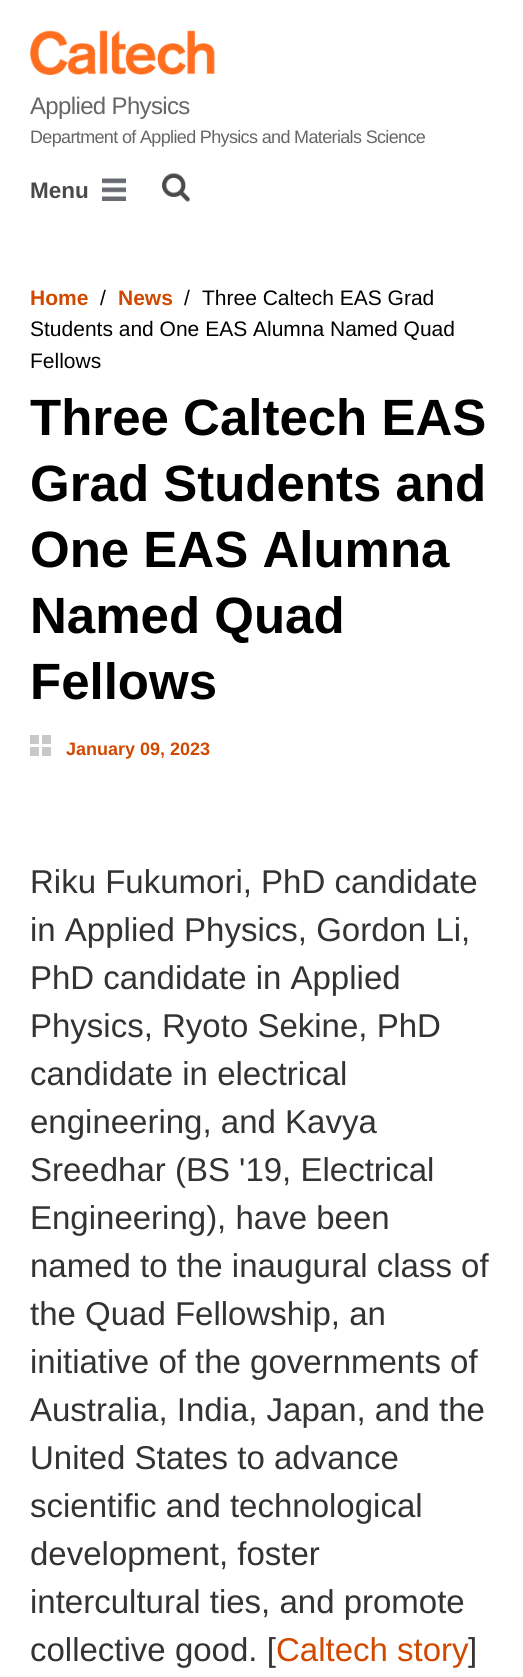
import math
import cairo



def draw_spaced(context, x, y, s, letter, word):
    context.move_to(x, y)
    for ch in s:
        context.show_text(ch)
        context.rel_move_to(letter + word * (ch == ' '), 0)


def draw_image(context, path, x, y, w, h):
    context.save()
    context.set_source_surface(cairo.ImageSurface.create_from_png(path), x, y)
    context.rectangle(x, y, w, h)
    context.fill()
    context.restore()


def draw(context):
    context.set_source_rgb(1, 1, 1)
    context.paint()
    draw_image(context, "images/1.png", 30, 30, 185, 45)
    draw_image(context, "images/2.png", 102, 178, 24, 23)
    draw_image(context, "images/3.png", 162, 173, 29, 29)
    context.set_source_rgb(200 / 255, 200 / 255, 200 / 255)
    context.rectangle(30, 735, 9, 9)
    context.fill()
    context.rectangle(42, 735, 9, 9)
    context.fill()
    context.rectangle(30, 747, 9, 9)
    context.fill()
    context.rectangle(42, 747, 9, 9)
    context.fill()
    context.select_font_face("Liberation Sans")
    context.set_font_size(24)
    context.set_source_rgb(102 / 255, 102 / 255, 102 / 255)
    draw_spaced(context, 30, 114, "Applied Physics", -0.65, 0)
    context.set_font_size(18)
    draw_spaced(context, 30, 143, "Department of Applied Physics and Materials Science", -0.65, 0)
    context.select_font_face("Liberation Sans", cairo.FontSlant.NORMAL, cairo.FontWeight.BOLD)
    context.set_font_size(22.5)
    context.set_source_rgb(74 / 255, 74 / 255, 74 / 255)
    context.move_to(30, 198)
    context.show_text("Menu")
    context.set_font_size(21)
    context.set_source_rgb(209 / 255, 73 / 255, 0)
    context.move_to(30, 305)
    context.show_text("Home")
    context.select_font_face("Liberation Sans")
    context.set_source_rgb(0, 0, 0)
    context.move_to(100, 305)
    context.show_text("/")
    context.select_font_face("Liberation Sans", cairo.FontSlant.NORMAL, cairo.FontWeight.BOLD)
    context.set_source_rgb(209 / 255, 73 / 255, 0)
    context.move_to(118, 305)
    context.show_text("News")
    context.select_font_face("Liberation Sans")
    context.set_source_rgb(0, 0, 0)
    context.move_to(184, 305)
    context.show_text("/")
    context.move_to(202, 305)
    context.show_text("Three Caltech EAS Grad")
    context.move_to(30, 336)
    context.show_text("Students and One EAS Alumna Named Quad")
    context.move_to(30, 368)
    context.show_text("Fellows")
    context.select_font_face("Liberation Sans", cairo.FontSlant.NORMAL, cairo.FontWeight.BOLD)
    context.set_font_size(51)
    context.move_to(30, 435)
    context.show_text("Three Caltech EAS")
    context.move_to(30, 501)
    context.show_text("Grad Students and")
    context.move_to(30, 567)
    context.show_text("One EAS Alumna")
    context.move_to(30, 633)
    context.show_text("Named Quad")
    context.move_to(30, 699)
    context.show_text("Fellows")
    context.set_font_size(18)
    context.set_source_rgb(209 / 255, 73 / 255, 0)
    context.move_to(66, 755)
    context.show_text("January 09, 2023")
    context.select_font_face("Liberation Sans")
    context.set_font_size(33)
    context.set_source_rgb(51 / 255, 51 / 255, 51 / 255)
    context.move_to(30, 893)
    context.show_text("Riku Fukumori, PhD candidate")
    context.move_to(30, 941)
    context.show_text("in Applied Physics, Gordon Li,")
    context.move_to(30, 989)
    context.show_text("PhD candidate in Applied")
    context.move_to(30, 1037)
    context.show_text("Physics, Ryoto Sekine, PhD")
    context.move_to(30, 1085)
    context.show_text("candidate in electrical")
    context.move_to(30, 1133)
    context.show_text("engineering, and Kavya")
    context.move_to(30, 1181)
    context.show_text("Sreedhar (BS '19, Electrical")
    context.move_to(30, 1229)
    context.show_text("Engineering), have been")
    context.move_to(30, 1277)
    context.show_text("named to the inaugural class of")
    context.move_to(30, 1325)
    context.show_text("the Quad Fellowship, an")
    context.move_to(30, 1373)
    context.show_text("initiative of the governments of")
    context.move_to(30, 1421)
    context.show_text("Australia, India, Japan, and the")
    context.move_to(30, 1469)
    context.show_text("United States to advance")
    context.move_to(30, 1517)
    context.show_text("scientific and technological")
    context.move_to(30, 1565)
    context.show_text("development, foster")
    context.move_to(30, 1613)
    context.show_text("intercultural ties, and promote")
    context.move_to(30, 1661)
    context.show_text("collective good. [")
    context.set_source_rgb(209 / 255, 73 / 255, 0)
    context.move_to(276, 1661)
    context.show_text("Caltech story")
    context.set_source_rgb(51 / 255, 51 / 255, 51 / 255)
    context.move_to(468, 1661)
    context.show_text("]")


surface = cairo.ImageSurface(cairo.Format.RGB24, 523, 1677)
context = cairo.Context(surface)
options = cairo.FontOptions()
options.set_hint_metrics(cairo.HintMetrics.OFF)
options.set_hint_style(cairo.HintStyle.NONE)
context.set_font_options(options)
context.set_miter_limit(4)
draw(context)
surface.write_to_png("out.png")
